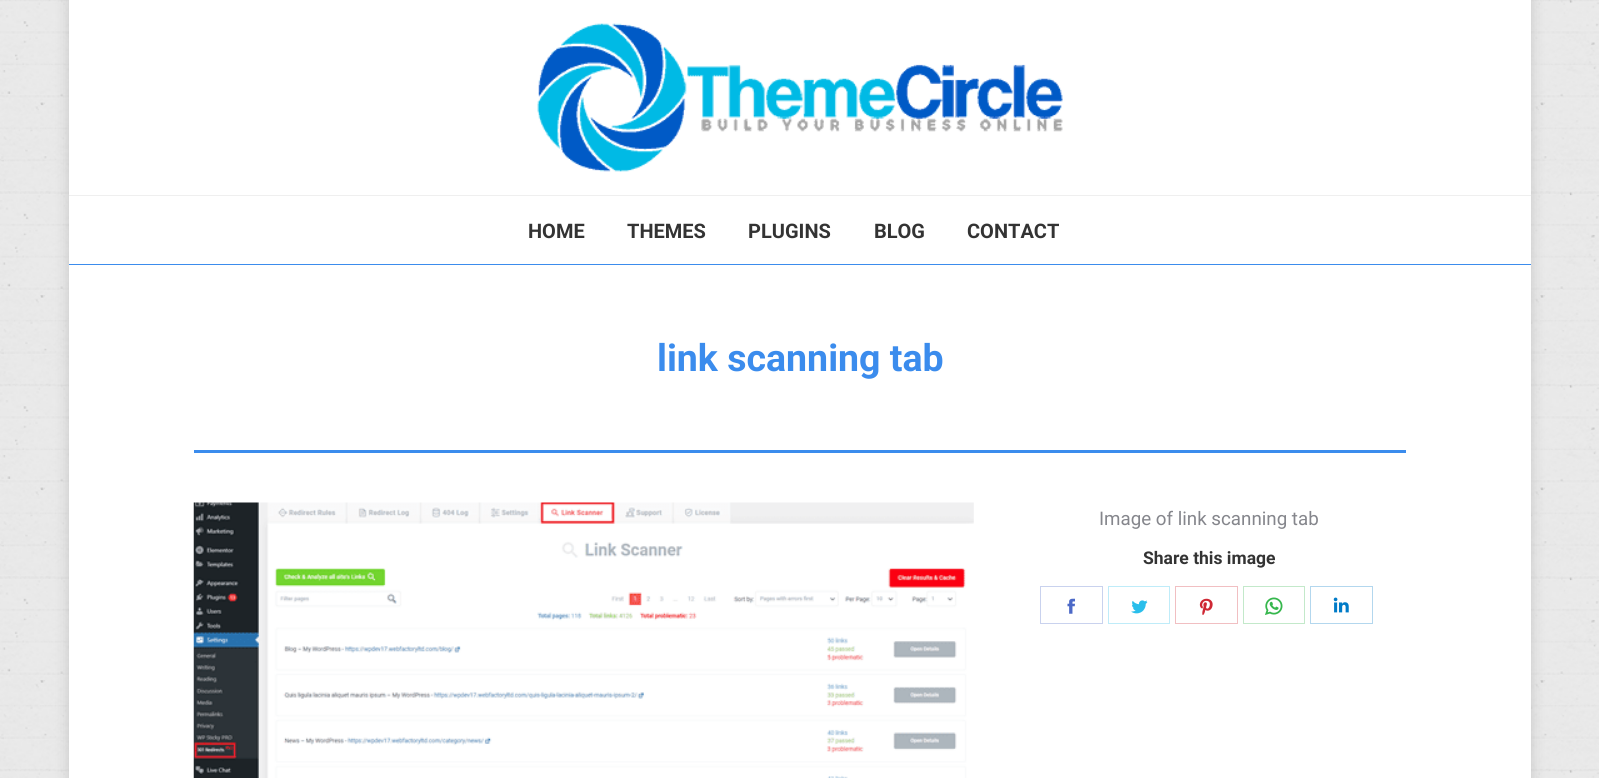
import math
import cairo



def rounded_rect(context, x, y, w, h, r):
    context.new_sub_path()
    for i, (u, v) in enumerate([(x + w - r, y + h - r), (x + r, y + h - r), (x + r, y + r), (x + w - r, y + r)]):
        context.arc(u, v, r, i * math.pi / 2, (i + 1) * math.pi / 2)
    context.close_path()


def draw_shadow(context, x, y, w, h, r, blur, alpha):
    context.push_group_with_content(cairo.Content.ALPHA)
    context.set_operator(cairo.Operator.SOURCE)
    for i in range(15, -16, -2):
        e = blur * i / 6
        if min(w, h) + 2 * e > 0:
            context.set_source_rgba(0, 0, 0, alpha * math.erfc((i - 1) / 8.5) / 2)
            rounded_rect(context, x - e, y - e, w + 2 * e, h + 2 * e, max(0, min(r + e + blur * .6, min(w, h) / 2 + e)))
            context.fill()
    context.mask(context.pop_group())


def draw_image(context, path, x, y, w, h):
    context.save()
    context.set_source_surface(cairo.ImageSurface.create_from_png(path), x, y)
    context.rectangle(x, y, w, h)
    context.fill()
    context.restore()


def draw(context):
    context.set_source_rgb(1, 1, 1)
    context.paint()
    draw_image(context, "images/1.png", 0, 0, 1599, 778)
    context.set_source_rgb(0, 0, 0)
    draw_shadow(context, 69, 0, 1462, 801, 0, 7.5, 0.15)
    context.set_source_rgb(1, 1, 1)
    context.rectangle(69, 0, 1462, 778)
    context.fill()
    context.set_source_rgb(59 / 255, 140 / 255, 237 / 255)
    context.rectangle(69, 264, 1462, 1)
    context.fill()
    draw_image(context, "images/2.png", 537, 23, 526, 149)
    context.set_source_rgb(239 / 255, 239 / 255, 239 / 255)
    context.rectangle(69, 195, 1462, 1)
    context.fill()
    context.set_source_rgb(59 / 255, 140 / 255, 237 / 255)
    context.rectangle(194, 450, 1212, 3)
    context.fill()
    draw_image(context, "images/3.png", 193, 502, 781, 276)
    context.rectangle(1040.5, 586.5, 62, 37)
    context.set_source_rgb(201 / 255, 210 / 255, 238 / 255)
    context.set_line_width(1)
    context.stroke()
    draw_image(context, "images/4.png", 1067, 598, 8, 16)
    context.rectangle(1108.5, 586.5, 61, 37)
    context.set_source_rgb(191 / 255, 236 / 255, 249 / 255)
    context.stroke()
    draw_image(context, "images/5.png", 1131, 600, 17, 14)
    context.rectangle(1175.5, 586.5, 62, 37)
    context.set_source_rgb(241 / 255, 191 / 255, 194 / 255)
    context.stroke()
    draw_image(context, "images/6.png", 1199, 598, 14, 17)
    context.rectangle(1243.5, 586.5, 61, 37)
    context.set_source_rgb(195 / 255, 233 / 255, 202 / 255)
    context.stroke()
    draw_image(context, "images/7.png", 1265, 597, 18, 18)
    context.rectangle(1310.5, 586.5, 62, 37)
    context.set_source_rgb(179 / 255, 215 / 255, 238 / 255)
    context.stroke()
    draw_image(context, "images/8.png", 1333, 597, 16, 16)
    context.select_font_face("Roboto", cairo.FontSlant.NORMAL, cairo.FontWeight.BOLD)
    context.set_font_size(20)
    context.set_source_rgb(51 / 255, 51 / 255, 51 / 255)
    context.move_to(528, 238)
    context.show_text("HOME")
    context.move_to(627, 238)
    context.show_text("THEMES")
    context.move_to(748, 238)
    context.show_text("PLUGINS")
    context.move_to(874, 238)
    context.show_text("BLOG")
    context.move_to(967, 238)
    context.show_text("CONTACT")
    context.set_font_size(37.5)
    context.set_source_rgb(59 / 255, 140 / 255, 237 / 255)
    context.move_to(657, 371)
    context.show_text("link scanning tab")
    context.select_font_face("Roboto")
    context.set_font_size(18.75)
    context.set_source_rgb(133 / 255, 134 / 255, 140 / 255)
    context.move_to(1099, 525)
    context.show_text("Image of link scanning tab")
    context.select_font_face("Roboto", cairo.FontSlant.NORMAL, cairo.FontWeight.BOLD)
    context.set_font_size(17.5)
    context.set_source_rgb(51 / 255, 51 / 255, 51 / 255)
    context.move_to(1143, 564)
    context.show_text("Share this image")


surface = cairo.ImageSurface(cairo.Format.RGB24, 1599, 778)
context = cairo.Context(surface)
options = cairo.FontOptions()
options.set_hint_metrics(cairo.HintMetrics.OFF)
options.set_hint_style(cairo.HintStyle.NONE)
context.set_font_options(options)
context.set_miter_limit(4)
draw(context)
surface.write_to_png("out.png")
